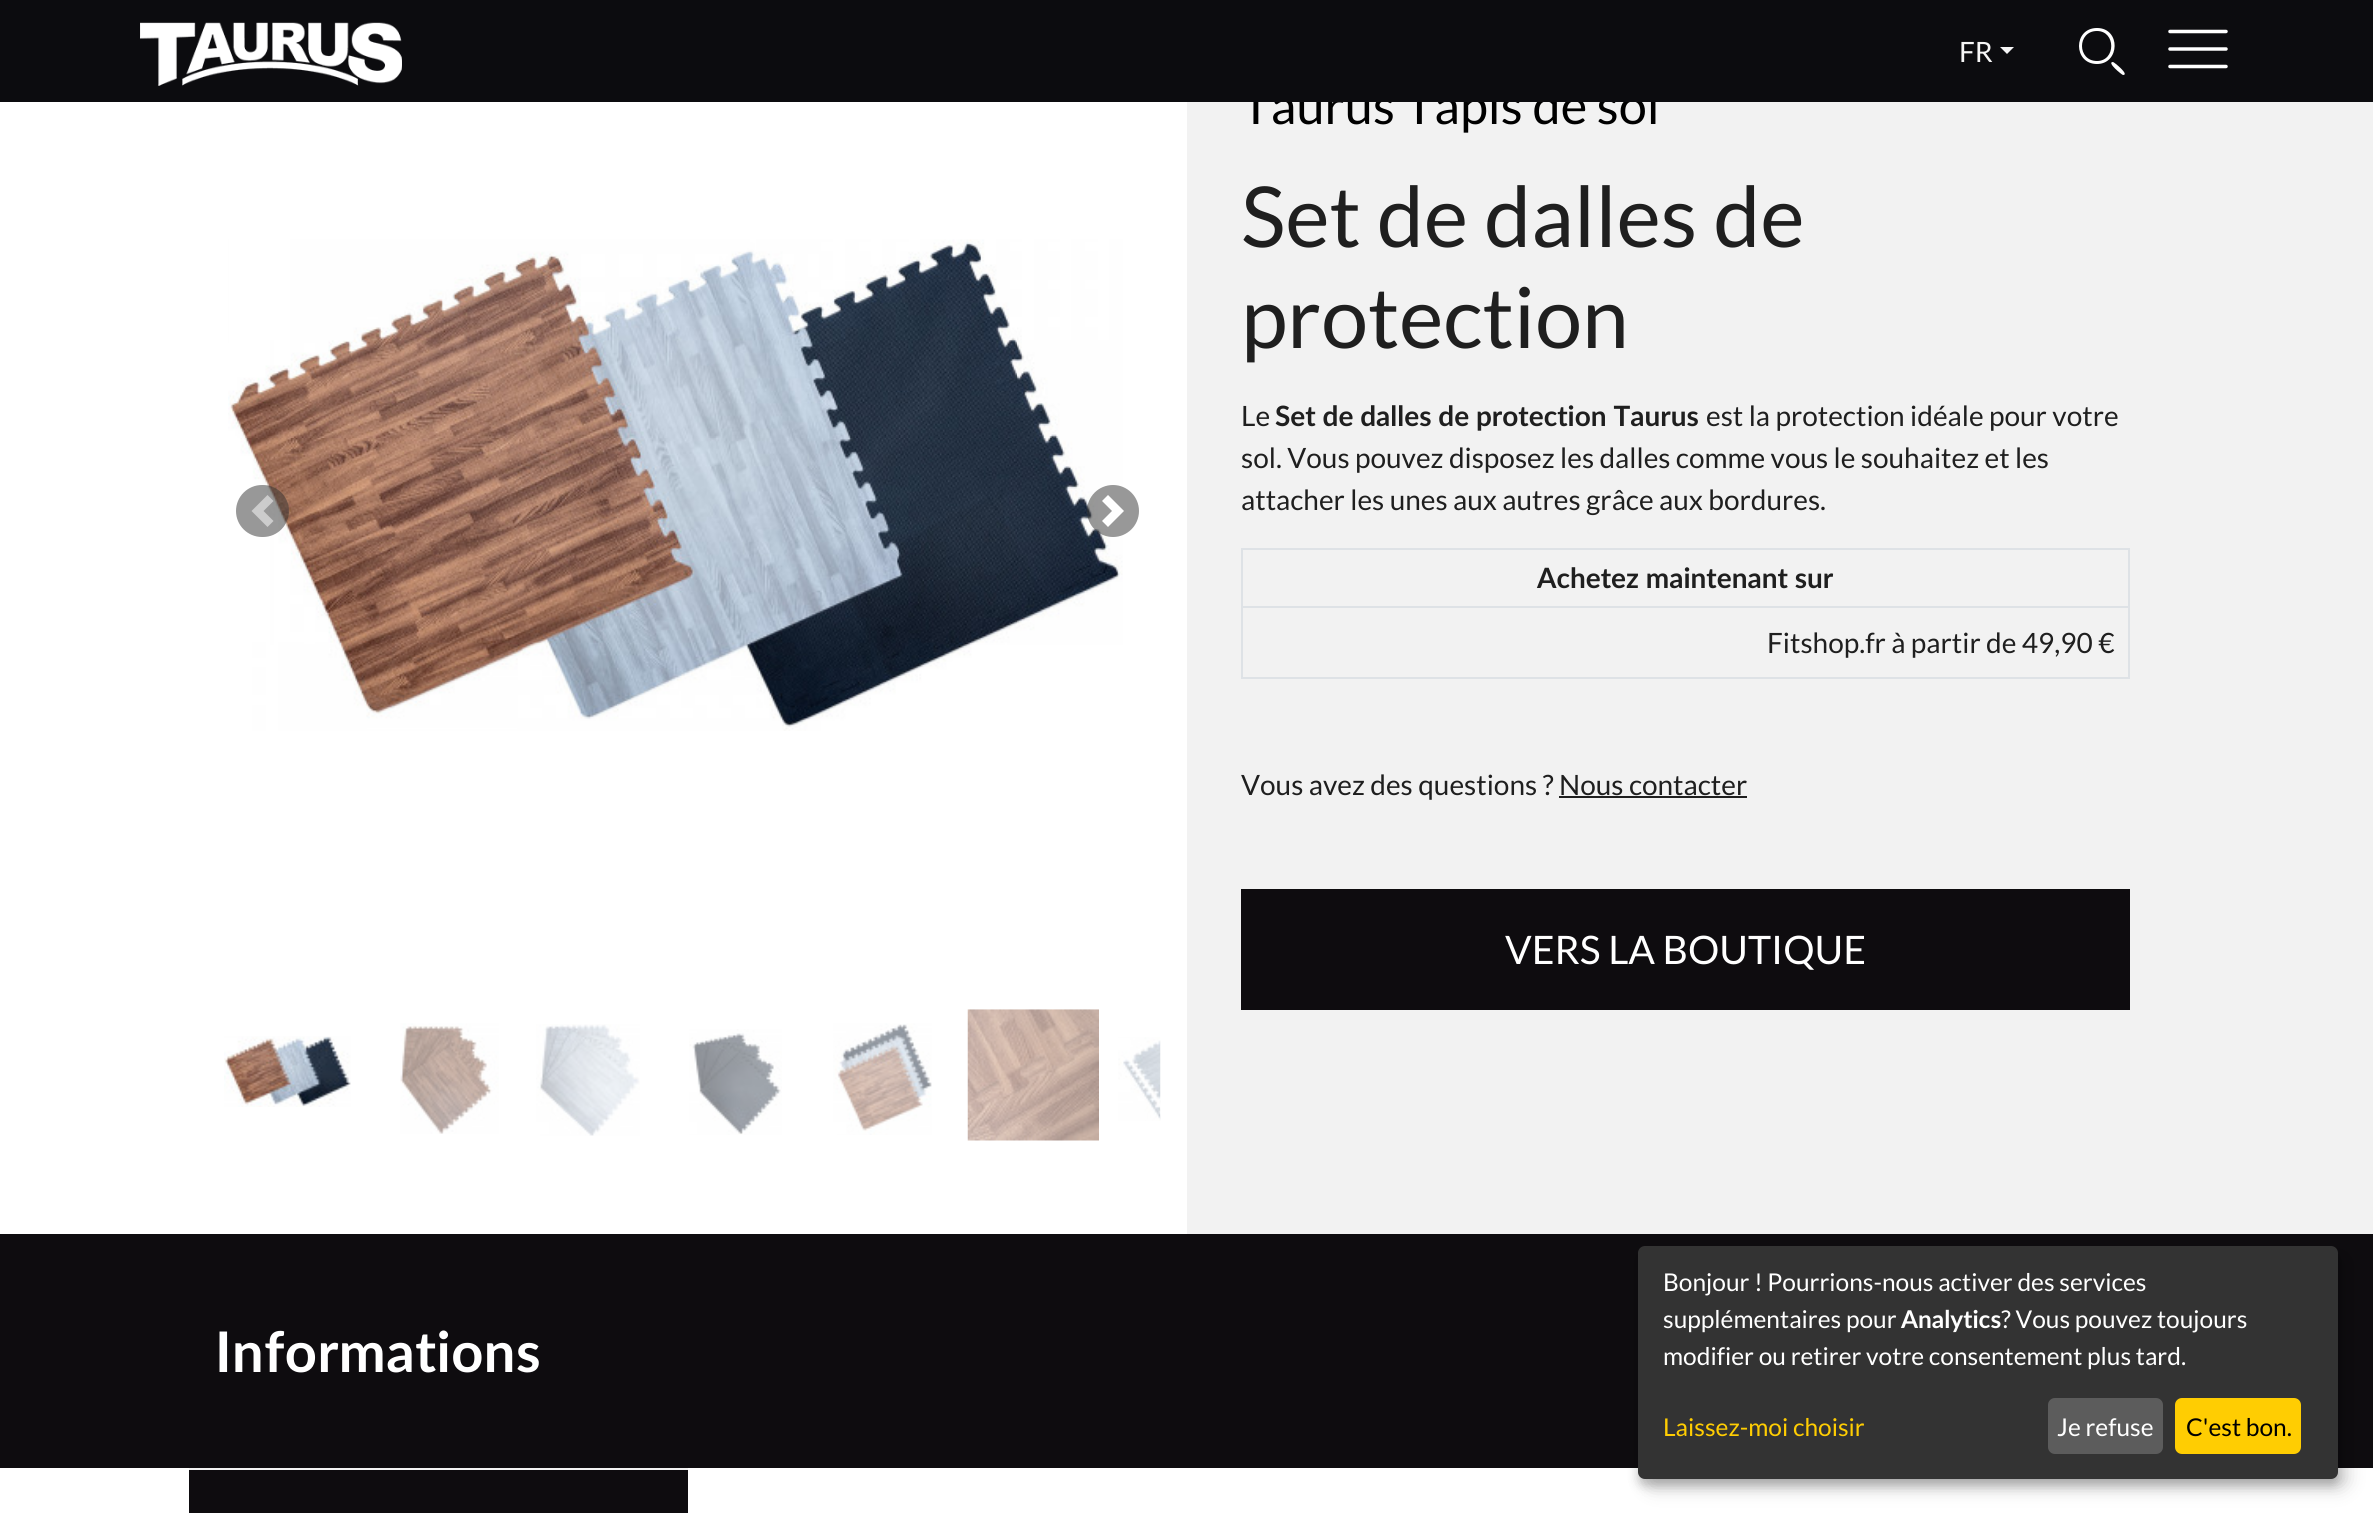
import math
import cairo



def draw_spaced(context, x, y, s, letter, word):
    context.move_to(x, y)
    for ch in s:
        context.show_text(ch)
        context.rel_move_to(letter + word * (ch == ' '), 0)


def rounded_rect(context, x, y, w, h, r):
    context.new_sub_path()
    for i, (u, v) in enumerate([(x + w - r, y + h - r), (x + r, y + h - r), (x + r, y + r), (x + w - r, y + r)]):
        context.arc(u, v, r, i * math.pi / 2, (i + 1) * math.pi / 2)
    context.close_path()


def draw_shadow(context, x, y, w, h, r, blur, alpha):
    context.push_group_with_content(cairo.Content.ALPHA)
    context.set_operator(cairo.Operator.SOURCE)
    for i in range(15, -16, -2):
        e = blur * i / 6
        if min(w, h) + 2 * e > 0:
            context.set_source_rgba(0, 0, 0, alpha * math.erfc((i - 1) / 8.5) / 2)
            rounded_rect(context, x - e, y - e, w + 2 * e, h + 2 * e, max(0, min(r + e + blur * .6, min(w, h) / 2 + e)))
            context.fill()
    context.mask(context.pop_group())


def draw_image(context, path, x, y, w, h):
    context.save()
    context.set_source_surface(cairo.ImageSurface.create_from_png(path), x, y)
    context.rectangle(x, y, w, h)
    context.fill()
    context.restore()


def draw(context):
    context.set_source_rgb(1, 1, 1)
    context.paint()
    draw_image(context, "images/3.png", 228, 239, 895, 492)
    context.set_source_rgba(51 / 255, 51 / 255, 51 / 255, 0.5)
    rounded_rect(context, 236, 485, 53, 52, 26)
    context.fill()
    context.set_source_rgba(1, 1, 1, 0.5)
    context.new_path()
    context.move_to(267.5, 495)
    context.line_to(251.5, 511)
    context.line_to(267.5, 527)
    context.line_to(273.5, 521)
    context.line_to(263.5, 511)
    context.line_to(273.5, 501)
    context.close_path()
    context.fill()
    context.set_source_rgba(51 / 255, 51 / 255, 51 / 255, 0.5)
    context.arc(1113, 511, 26, 0, 2 * math.pi)
    context.fill()
    context.set_source_rgb(1, 1, 1)
    context.new_path()
    context.move_to(1108, 495)
    context.line_to(1102, 501)
    context.line_to(1112, 511)
    context.line_to(1102, 521)
    context.line_to(1108, 527)
    context.line_to(1124, 511)
    context.close_path()
    context.fill()
    draw_image(context, "images/4.png", 224, 1036, 127, 71)
    draw_image(context, "images/5.png", 400, 1023, 99, 111)
    draw_image(context, "images/6.png", 536, 1024, 104, 112)
    draw_image(context, "images/7.png", 689, 1029, 93, 106)
    draw_image(context, "images/8.png", 833, 1023, 99, 112)
    draw_image(context, "images/9.png", 967, 1009, 132, 132)
    draw_image(context, "images/10.png", 1118, 1037, 43, 84)
    context.set_source_rgb(242 / 255, 242 / 255, 242 / 255)
    context.rectangle(1187, 102, 1186, 1132)
    context.fill()
    context.rectangle(1242, 549, 887, 129)
    context.set_source_rgb(222 / 255, 226 / 255, 230 / 255)
    context.stroke()
    context.rectangle(1243, 606, 885, 2)
    context.fill()
    context.set_source_rgb(31 / 255, 31 / 255, 31 / 255)
    context.rectangle(1559, 796, 188, 2)
    context.fill()
    context.set_source_rgb(14 / 255, 12 / 255, 15 / 255)
    context.rectangle(1241, 889, 889, 121)
    context.fill()
    context.rectangle(0, 1234, 2373, 234)
    context.fill()
    context.set_source_rgb(242 / 255, 242 / 255, 242 / 255)
    context.rectangle(189, 1468, 499, 2)
    context.fill()
    context.set_source_rgb(14 / 255, 12 / 255, 15 / 255)
    context.rectangle(189, 1470, 499, 43)
    context.fill()
    context.set_source_rgb(0, 0, 0)
    draw_shadow(context, 1647, 1255, 700, 233, 7, 9, 0.19)
    draw_shadow(context, 1638, 1253, 700, 233, 7, 5, 0.2)
    context.set_source_rgb(51 / 255, 51 / 255, 51 / 255)
    rounded_rect(context, 1638, 1246, 700, 233, 7)
    context.fill()
    context.set_source_rgb(92 / 255, 92 / 255, 92 / 255)
    rounded_rect(context, 2048, 1398, 115, 56, 7)
    context.fill()
    context.set_source_rgb(1, 205 / 255, 2 / 255)
    rounded_rect(context, 2175, 1398, 126, 56, 7)
    context.fill()
    context.select_font_face("Lato")
    context.set_font_size(50.5)
    context.set_source_rgb(0, 0, 0)
    context.move_to(1241, 124)
    context.show_text("Taurus Tapis de sol")
    context.set_source_rgb(12 / 255, 12 / 255, 15 / 255)
    context.rectangle(0, 0, 2373, 102)
    context.fill()
    draw_image(context, "images/2.png", 2168, 29, 60, 40)
    context.set_source_rgb(1, 1, 1)
    context.new_path()
    context.move_to(2097, 64)
    context.curve_to(2073, 64, 2073, 28, 2097, 28)
    context.curve_to(2121, 28, 2120, 64, 2097, 64)
    context.close_path()
    context.move_to(2097, 31)
    context.curve_to(2077, 31, 2077, 61, 2097, 61)
    context.curve_to(2116, 61, 2116, 31, 2097, 31)
    context.close_path()
    context.move_to(2123, 75)
    context.curve_to(2122, 75, 2106, 62, 2113, 62)
    context.curve_to(2114, 62, 2130, 75, 2123, 75)
    context.close_path()
    context.fill()
    context.set_source_rgb(246 / 255, 246 / 255, 246 / 255)
    context.new_path()
    context.move_to(2000, 47)
    context.line_to(2014, 47)
    context.line_to(2007, 54)
    context.close_path()
    context.fill()
    context.set_font_size(28)
    context.move_to(1959, 62)
    context.show_text("FR")
    draw_image(context, "images/1.png", 140, 22, 262, 64)
    context.set_font_size(84)
    context.set_source_rgb(31 / 255, 31 / 255, 31 / 255)
    context.move_to(1241, 247)
    context.show_text("Set de dalles de")
    context.move_to(1241, 348)
    context.show_text("protection")
    context.set_font_size(28)
    context.move_to(1241, 426)
    context.show_text("Le")
    context.select_font_face("Lato", cairo.FontSlant.NORMAL, cairo.FontWeight.BOLD)
    context.move_to(1275, 426)
    context.show_text("Set de dalles de protection Taurus")
    context.select_font_face("Lato")
    context.move_to(1706, 426)
    context.show_text("est la protection idéale pour votre")
    context.move_to(1241, 468)
    context.show_text("sol. Vous pouvez disposez les dalles comme vous le souhaitez et les")
    context.move_to(1241, 510)
    context.show_text("attacher les unes aux autres grâce aux bordures.")
    context.select_font_face("Lato", cairo.FontSlant.NORMAL, cairo.FontWeight.BOLD)
    context.move_to(1537, 588)
    context.show_text("Achetez maintenant sur")
    context.select_font_face("Lato")
    context.move_to(1767, 653)
    context.show_text("Fitshop.fr à partir de 49,90 €")
    context.move_to(1241, 795)
    context.show_text("Vous avez des questions ? Nous contacter")
    context.set_font_size(39.25)
    context.set_source_rgb(1, 1, 1)
    context.move_to(1505, 964)
    context.show_text("VERS LA BOUTIQUE")
    context.select_font_face("Lato", cairo.FontSlant.NORMAL, cairo.FontWeight.BOLD)
    context.set_font_size(56)
    draw_spaced(context, 215, 1372, "Informations", 0.5, 0)
    context.select_font_face("Lato")
    context.set_font_size(24.5)
    context.move_to(1663, 1291)
    context.show_text("Bonjour ! Pourrions-nous activer des services")
    context.move_to(1663, 1328)
    context.show_text("supplémentaires pour")
    context.select_font_face("Lato", cairo.FontSlant.NORMAL, cairo.FontWeight.BOLD)
    context.move_to(1901, 1328)
    context.show_text("Analytics")
    context.select_font_face("Lato")
    context.move_to(2001, 1328)
    context.show_text("? Vous pouvez toujours")
    context.move_to(1663, 1365)
    context.show_text("modifier ou retirer votre consentement plus tard.")
    context.set_source_rgb(1, 205 / 255, 2 / 255)
    context.move_to(1663, 1436)
    context.show_text("Laissez-moi choisir")
    context.set_source_rgb(1, 1, 1)
    context.move_to(2057, 1436)
    context.show_text("Je refuse")
    context.set_source_rgb(0, 0, 0)
    context.move_to(2186, 1436)
    context.show_text("C'est bon.")


surface = cairo.ImageSurface(cairo.Format.RGB24, 2373, 1513)
context = cairo.Context(surface)
options = cairo.FontOptions()
options.set_hint_metrics(cairo.HintMetrics.OFF)
options.set_hint_style(cairo.HintStyle.NONE)
context.set_font_options(options)
context.set_miter_limit(4)
draw(context)
surface.write_to_png("out.png")
